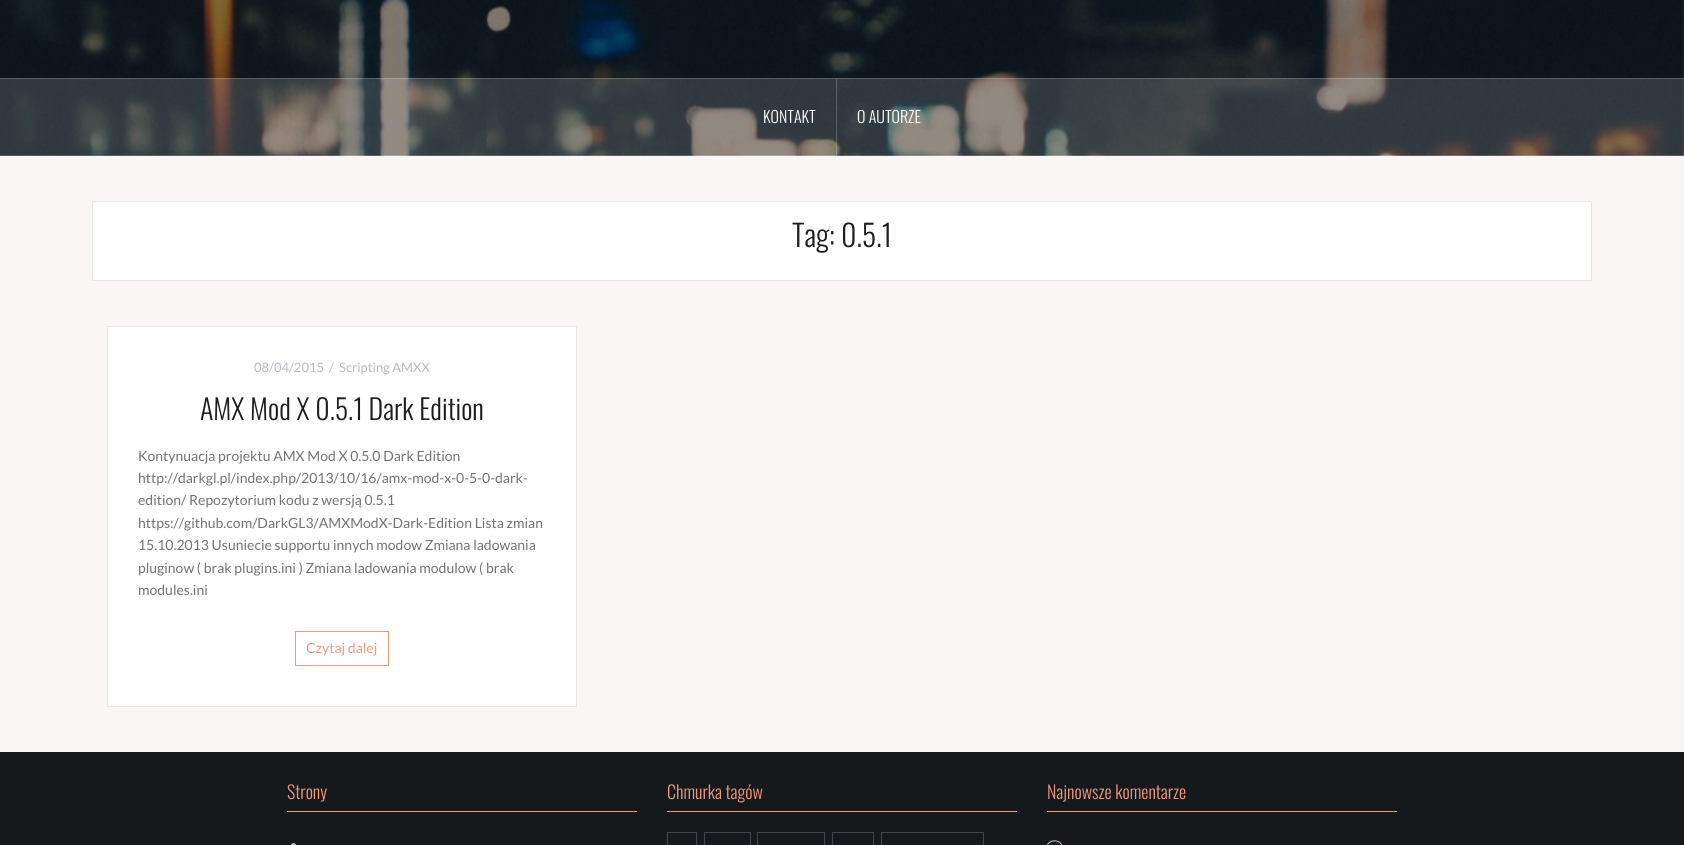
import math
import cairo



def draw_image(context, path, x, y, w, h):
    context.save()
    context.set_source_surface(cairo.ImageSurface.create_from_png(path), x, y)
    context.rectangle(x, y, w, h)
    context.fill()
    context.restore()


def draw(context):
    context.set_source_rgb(249 / 255, 246 / 255, 245 / 255)
    context.paint()
    draw_image(context, "images/1.png", 0, 0, 1684, 156)
    context.set_source_rgba(1, 1, 1, 0.15)
    context.rectangle(0, 78, 1684, 78)
    context.fill()
    context.set_source_rgba(1, 1, 1, 0.2)
    context.rectangle(0, 78, 1684, 1)
    context.fill()
    context.rectangle(0, 155, 1684, 1)
    context.fill()
    context.rectangle(836, 79, 1, 76)
    context.fill()
    context.set_source_rgb(1, 1, 1)
    context.rectangle(92.5, 201.5, 1499, 79)
    context.fill_preserve()
    context.set_source_rgb(232 / 255, 232 / 255, 232 / 255)
    context.set_line_width(1)
    context.stroke()
    context.set_source_rgb(1, 1, 1)
    context.rectangle(107.5, 326.5, 469, 380)
    context.fill_preserve()
    context.set_source_rgb(232 / 255, 232 / 255, 232 / 255)
    context.stroke()
    context.rectangle(295.5, 631.5, 93, 34)
    context.set_source_rgb(239 / 255, 153 / 255, 127 / 255)
    context.stroke()
    context.set_source_rgb(21 / 255, 25 / 255, 27 / 255)
    context.rectangle(0, 752, 1684, 93)
    context.fill()
    context.set_source_rgb(239 / 255, 153 / 255, 127 / 255)
    context.rectangle(287, 811, 350, 1)
    context.fill()
    context.set_source_rgb(186 / 255, 186 / 255, 186 / 255)
    context.arc(293.5, 845.5, 2.5, 0, 2 * math.pi)
    context.fill()
    context.set_source_rgb(239 / 255, 153 / 255, 127 / 255)
    context.rectangle(667, 811, 350, 1)
    context.fill()
    context.rectangle(667.5, 832.5, 29, 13)
    context.set_source_rgb(65 / 255, 71 / 255, 79 / 255)
    context.stroke()
    context.rectangle(704.5, 832.5, 46, 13)
    context.stroke()
    context.rectangle(757.5, 832.5, 67, 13)
    context.stroke()
    context.rectangle(832.5, 832.5, 41, 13)
    context.stroke()
    context.rectangle(881.5, 832.5, 102, 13)
    context.stroke()
    context.set_source_rgb(239 / 255, 153 / 255, 127 / 255)
    context.rectangle(1047, 811, 350, 1)
    context.fill()
    draw_image(context, "images/2.png", 1047, 840, 15, 5)
    context.select_font_face("Oswald Light")
    context.set_font_size(16)
    context.set_source_rgb(1, 1, 1)
    context.move_to(763, 123)
    context.show_text("KONTAKT")
    context.move_to(857, 123)
    context.show_text("O AUTORZE")
    context.set_font_size(30)
    context.set_source_rgb(28 / 255, 28 / 255, 28 / 255)
    context.move_to(792, 247)
    context.show_text("Tag: 0.5.1")
    context.select_font_face("Lato")
    context.set_font_size(13)
    context.set_source_rgb(181 / 255, 187 / 255, 197 / 255)
    context.move_to(254, 372)
    context.show_text("08/04/2015")
    context.move_to(329, 372)
    context.show_text("/")
    context.move_to(339, 372)
    context.show_text("Scripting AMXX")
    context.select_font_face("Oswald Light")
    context.set_font_size(28)
    context.set_source_rgb(28 / 255, 28 / 255, 28 / 255)
    context.move_to(200, 420)
    context.show_text("AMX Mod X 0.5.1 Dark Edition")
    context.select_font_face("Lato")
    context.set_font_size(14)
    context.set_source_rgb(113 / 255, 115 / 255, 118 / 255)
    context.move_to(138, 461)
    context.show_text("Kontynuacja projektu AMX Mod X 0.5.0 Dark Edition")
    context.move_to(138, 483)
    context.show_text("http://darkgl.pl/index.php/2013/10/16/amx-mod-x-0-5-0-dark-")
    context.move_to(138, 505)
    context.show_text("edition/ Repozytorium kodu z wersją 0.5.1")
    context.move_to(138, 528)
    context.show_text("https://github.com/DarkGL3/AMXModX-Dark-Edition Lista zmian")
    context.move_to(138, 550)
    context.show_text("15.10.2013 Usuniecie supportu innych modow Zmiana ladowania")
    context.move_to(138, 573)
    context.show_text("pluginow ( brak plugins.ini ) Zmiana ladowania modulow ( brak")
    context.move_to(138, 595)
    context.show_text("modules.ini")
    context.set_source_rgb(239 / 255, 153 / 255, 127 / 255)
    context.move_to(306, 653)
    context.show_text("Czytaj dalej")
    context.select_font_face("Oswald Light")
    context.set_font_size(18)
    context.move_to(287, 799)
    context.show_text("Strony")
    context.move_to(667, 799)
    context.show_text("Chmurka tagów")
    context.move_to(1047, 799)
    context.show_text("Najnowsze komentarze")


surface = cairo.ImageSurface(cairo.Format.RGB24, 1684, 845)
context = cairo.Context(surface)
options = cairo.FontOptions()
options.set_hint_metrics(cairo.HintMetrics.OFF)
options.set_hint_style(cairo.HintStyle.NONE)
context.set_font_options(options)
context.set_miter_limit(4)
draw(context)
surface.write_to_png("out.png")
